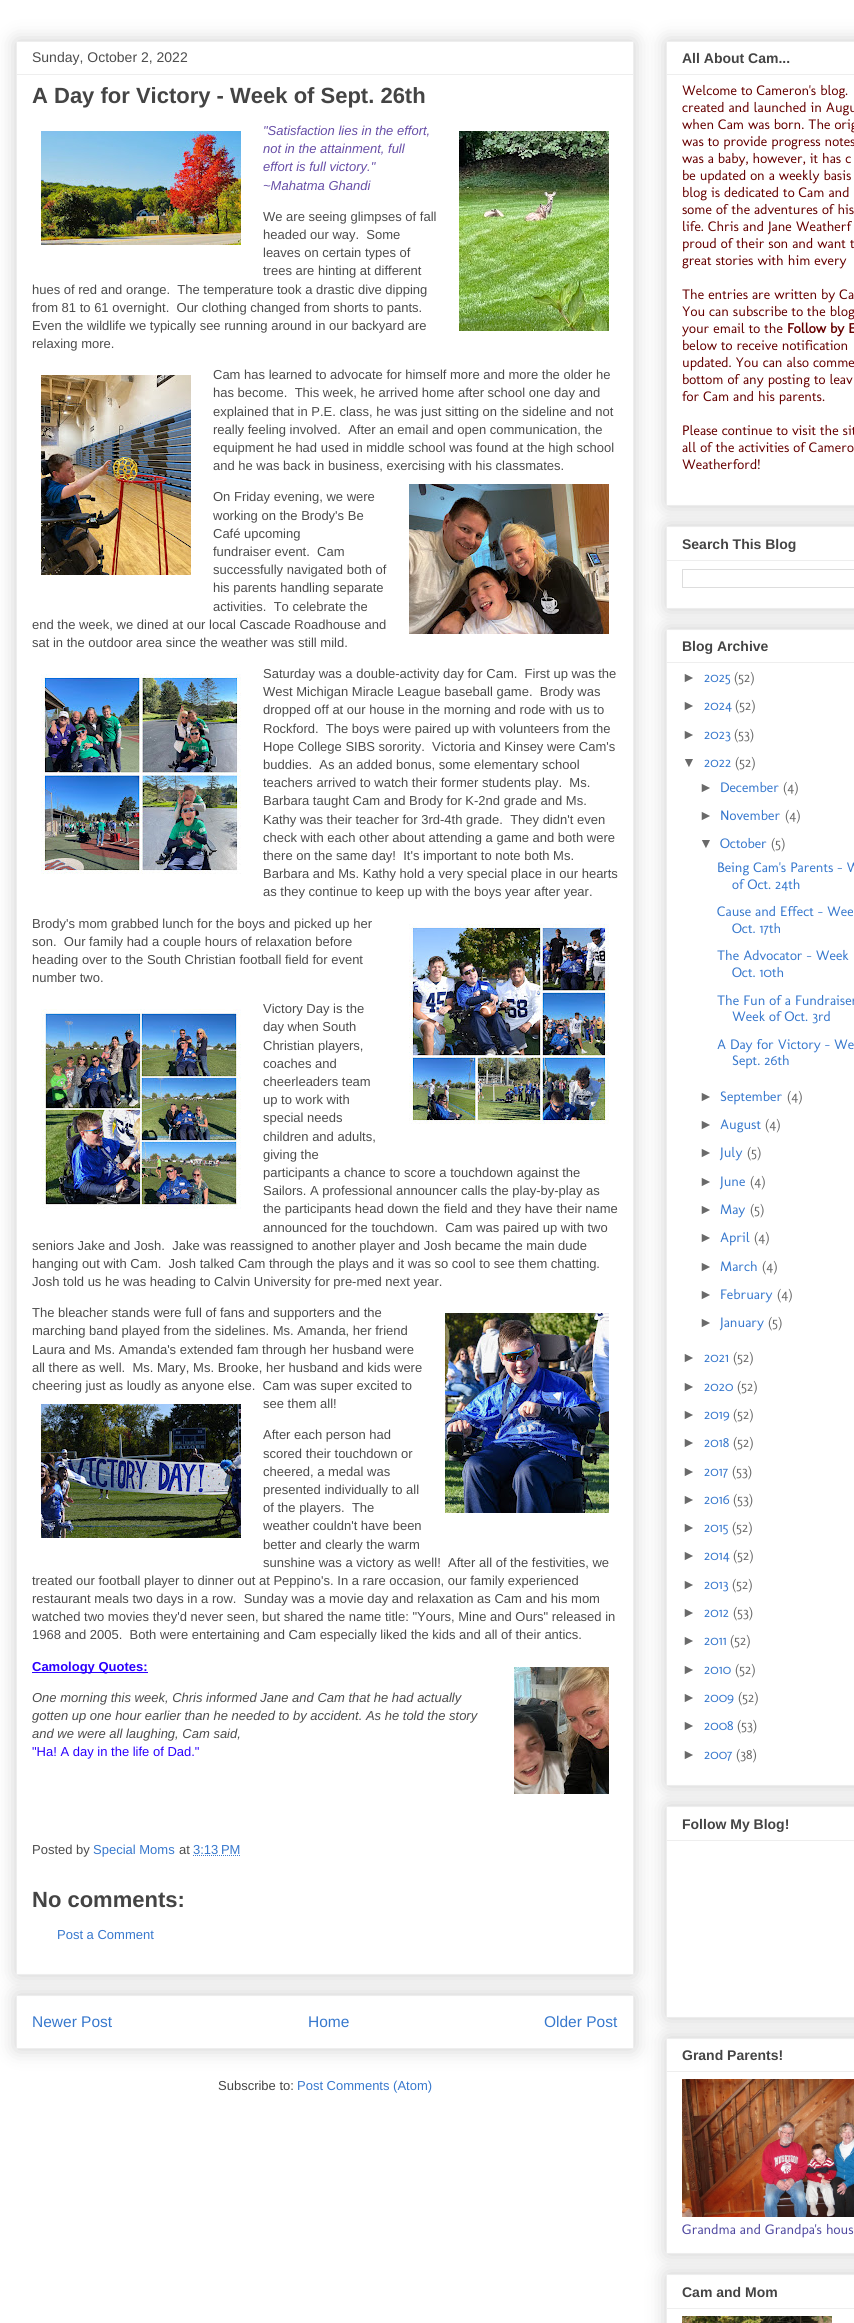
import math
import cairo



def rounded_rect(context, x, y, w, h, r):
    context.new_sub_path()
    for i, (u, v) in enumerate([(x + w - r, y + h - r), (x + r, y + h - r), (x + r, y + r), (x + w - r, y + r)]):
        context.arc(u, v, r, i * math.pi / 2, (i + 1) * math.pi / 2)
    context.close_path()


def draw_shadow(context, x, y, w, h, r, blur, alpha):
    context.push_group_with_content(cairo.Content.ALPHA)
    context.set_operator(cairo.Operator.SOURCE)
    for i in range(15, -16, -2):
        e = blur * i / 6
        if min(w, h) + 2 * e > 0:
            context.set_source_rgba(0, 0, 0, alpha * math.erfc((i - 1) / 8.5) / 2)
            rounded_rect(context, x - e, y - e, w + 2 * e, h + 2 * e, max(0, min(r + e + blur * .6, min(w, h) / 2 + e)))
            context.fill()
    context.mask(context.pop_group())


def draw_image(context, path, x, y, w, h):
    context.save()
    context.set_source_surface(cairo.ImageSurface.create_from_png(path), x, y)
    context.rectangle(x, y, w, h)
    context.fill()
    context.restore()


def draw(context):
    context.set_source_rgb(1, 1, 1)
    context.paint()
    context.save()
    context.set_fill_rule(cairo.FillRule.EVEN_ODD)
    context.new_path()
    context.move_to(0, 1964)
    context.line_to(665, 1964)
    context.line_to(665, 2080)
    context.line_to(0, 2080)
    context.close_path()
    context.move_to(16, 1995)
    context.line_to(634, 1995)
    context.line_to(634, 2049)
    context.line_to(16, 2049)
    context.close_path()
    context.clip()
    context.set_source_rgb(0, 0, 0)
    draw_shadow(context, 16, 1995, 618, 54, 0, 10, 0.2)
    context.restore()
    context.rectangle(16.5, 1995.5, 617, 53)
    context.set_source_rgb(238 / 255, 238 / 255, 238 / 255)
    context.set_line_width(1)
    context.stroke()
    context.save()
    context.set_fill_rule(cairo.FillRule.EVEN_ODD)
    context.new_path()
    context.move_to(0, 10)
    context.line_to(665, 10)
    context.line_to(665, 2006)
    context.line_to(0, 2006)
    context.close_path()
    context.move_to(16, 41)
    context.line_to(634, 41)
    context.line_to(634, 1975)
    context.line_to(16, 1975)
    context.close_path()
    context.clip()
    context.set_source_rgb(0, 0, 0)
    draw_shadow(context, 16, 41, 618, 1934, 0, 10, 0.2)
    context.restore()
    context.rectangle(16.5, 41.5, 617, 1933)
    context.stroke()
    context.rectangle(17, 74, 616, 1)
    context.fill()
    draw_image(context, "images/1.png", 41, 131, 200, 114)
    draw_image(context, "images/2.png", 459, 131, 150, 200)
    draw_image(context, "images/3.png", 41, 375, 150, 200)
    draw_image(context, "images/4.png", 409, 484, 200, 150)
    draw_image(context, "images/5.png", 41, 674, 200, 200)
    draw_image(context, "images/6.png", 409, 924, 200, 200)
    draw_image(context, "images/7.png", 41, 1009, 200, 200)
    draw_image(context, "images/8.png", 445, 1313, 164, 200)
    draw_image(context, "images/9.png", 41, 1404, 200, 134)
    context.set_source_rgb(43 / 255, 0, 254 / 255)
    context.rectangle(32, 1672, 116, 1)
    context.fill()
    draw_image(context, "images/10.png", 514, 1667, 95, 127)
    context.new_path()
    context.move_to(193, 1855.5)
    context.line_to(240.5, 1855.5)
    context.set_source_rgb(59 / 255, 122 / 255, 206 / 255)
    context.set_dash([1, 1])
    context.stroke()
    context.save()
    context.set_fill_rule(cairo.FillRule.EVEN_ODD)
    context.new_path()
    context.move_to(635, 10)
    context.line_to(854, 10)
    context.line_to(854, 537)
    context.line_to(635, 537)
    context.close_path()
    context.move_to(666, 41)
    context.line_to(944, 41)
    context.line_to(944, 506)
    context.line_to(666, 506)
    context.close_path()
    context.clip()
    context.set_source_rgb(0, 0, 0)
    draw_shadow(context, 666, 41, 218, 465, 0, 10, 0.2)
    context.restore()
    context.rectangle(666.5, 41.5, 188, 464)
    context.set_source_rgb(238 / 255, 238 / 255, 238 / 255)
    context.set_dash([])
    context.stroke()
    context.rectangle(667, 74, 187, 1)
    context.fill()
    context.save()
    context.set_fill_rule(cairo.FillRule.EVEN_ODD)
    context.new_path()
    context.move_to(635, 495)
    context.line_to(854, 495)
    context.line_to(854, 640)
    context.line_to(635, 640)
    context.close_path()
    context.move_to(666, 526)
    context.line_to(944, 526)
    context.line_to(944, 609)
    context.line_to(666, 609)
    context.close_path()
    context.clip()
    context.set_source_rgb(0, 0, 0)
    draw_shadow(context, 666, 526, 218, 83, 0, 10, 0.2)
    context.restore()
    context.rectangle(666.5, 526.5, 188, 82)
    context.stroke()
    context.rectangle(667, 560, 187, 1)
    context.fill()
    context.rectangle(682.5, 569.5, 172, 18)
    context.set_source_rgb(221 / 255, 221 / 255, 221 / 255)
    context.stroke()
    context.save()
    context.set_fill_rule(cairo.FillRule.EVEN_ODD)
    context.new_path()
    context.move_to(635, 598)
    context.line_to(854, 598)
    context.line_to(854, 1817)
    context.line_to(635, 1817)
    context.close_path()
    context.move_to(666, 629)
    context.line_to(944, 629)
    context.line_to(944, 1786)
    context.line_to(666, 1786)
    context.close_path()
    context.clip()
    context.set_source_rgb(0, 0, 0)
    draw_shadow(context, 666, 629, 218, 1157, 0, 10, 0.2)
    context.restore()
    context.rectangle(666.5, 629.5, 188, 1156)
    context.set_source_rgb(238 / 255, 238 / 255, 238 / 255)
    context.stroke()
    context.rectangle(667, 662, 187, 1)
    context.fill()
    context.save()
    context.set_fill_rule(cairo.FillRule.EVEN_ODD)
    context.new_path()
    context.move_to(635, 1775)
    context.line_to(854, 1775)
    context.line_to(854, 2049)
    context.line_to(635, 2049)
    context.close_path()
    context.move_to(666, 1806)
    context.line_to(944, 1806)
    context.line_to(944, 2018)
    context.line_to(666, 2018)
    context.close_path()
    context.clip()
    context.set_source_rgb(0, 0, 0)
    draw_shadow(context, 666, 1806, 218, 212, 0, 10, 0.2)
    context.restore()
    context.rectangle(666.5, 1806.5, 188, 211)
    context.stroke()
    context.rectangle(667, 1840, 187, 1)
    context.fill()
    context.save()
    context.set_fill_rule(cairo.FillRule.EVEN_ODD)
    context.new_path()
    context.move_to(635, 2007)
    context.line_to(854, 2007)
    context.line_to(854, 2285)
    context.line_to(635, 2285)
    context.close_path()
    context.move_to(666, 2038)
    context.line_to(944, 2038)
    context.line_to(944, 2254)
    context.line_to(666, 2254)
    context.close_path()
    context.clip()
    context.set_source_rgb(0, 0, 0)
    draw_shadow(context, 666, 2038, 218, 216, 0, 10, 0.2)
    context.restore()
    context.rectangle(666.5, 2038.5, 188, 215)
    context.stroke()
    context.rectangle(667, 2071, 187, 1)
    context.fill()
    draw_image(context, "images/11.png", 682, 2079, 172, 138)
    context.save()
    context.set_fill_rule(cairo.FillRule.EVEN_ODD)
    context.new_path()
    context.move_to(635, 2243)
    context.line_to(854, 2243)
    context.line_to(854, 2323)
    context.line_to(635, 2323)
    context.close_path()
    context.move_to(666, 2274)
    context.line_to(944, 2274)
    context.line_to(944, 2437)
    context.line_to(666, 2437)
    context.close_path()
    context.clip()
    context.set_source_rgb(0, 0, 0)
    draw_shadow(context, 666, 2274, 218, 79, 0, 10, 0.2)
    context.restore()
    context.rectangle(666.5, 2274.5, 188, 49)
    context.stroke()
    context.rectangle(667, 2308, 187, 1)
    context.fill()
    draw_image(context, "images/12.png", 682, 2316, 150, 7)
    context.select_font_face("Liberation Sans")
    context.set_font_size(14)
    context.set_source_rgb(76 / 255, 76 / 255, 76 / 255)
    context.move_to(32, 62)
    context.show_text("Sunday, October 2, 2022")
    context.select_font_face("Liberation Sans", cairo.FontSlant.NORMAL, cairo.FontWeight.BOLD)
    context.set_font_size(22)
    context.set_source_rgb(68 / 255, 68 / 255, 68 / 255)
    context.move_to(32, 103)
    context.show_text("A Day for Victory - Week of Sept. 26th")
    context.select_font_face("Liberation Sans", cairo.FontSlant.ITALIC)
    context.set_font_size(13)
    context.set_source_rgb(103 / 255, 78 / 255, 167 / 255)
    context.move_to(263, 135)
    context.show_text("\"Satisfaction lies in the effort,")
    context.move_to(263, 153)
    context.show_text("not in the attainment, full")
    context.move_to(263, 171)
    context.show_text("effort is full victory.\"")
    context.move_to(263, 190)
    context.show_text("~Mahatma Ghandi")
    context.select_font_face("Liberation Sans")
    context.set_source_rgb(76 / 255, 76 / 255, 76 / 255)
    context.move_to(263, 221)
    context.show_text("We are seeing glimpses of fall")
    context.move_to(263, 239)
    context.show_text("headed our way.  Some")
    context.move_to(263, 257)
    context.show_text("leaves on certain types of")
    context.move_to(263, 275)
    context.show_text("trees are hinting at different")
    context.move_to(32, 294)
    context.show_text("hues of red and orange.  The temperature took a drastic dive dipping")
    context.move_to(32, 312)
    context.show_text("from 81 to 61 overnight.  Our clothing changed from shorts to pants.")
    context.move_to(32, 330)
    context.show_text("Even the wildlife we typically see running around in our backyard are")
    context.move_to(32, 348)
    context.show_text("relaxing more.")
    context.move_to(213, 379)
    context.show_text("Cam has learned to advocate for himself more and more the older he")
    context.move_to(213, 397)
    context.show_text("has become.  This week, he arrived home after school one day and")
    context.move_to(213, 416)
    context.show_text("explained that in P.E. class, he was just sitting on the sideline and not")
    context.move_to(213, 434)
    context.show_text("really feeling involved.  After an email and open communication, the")
    context.move_to(213, 452)
    context.show_text("equipment he had used in middle school was found at the high school")
    context.move_to(213, 470)
    context.show_text("and he was back in business, exercising with his classmates.")
    context.move_to(213, 501)
    context.show_text("On Friday evening, we were")
    context.move_to(213, 520)
    context.show_text("working on the Brody's Be")
    context.move_to(213, 538)
    context.show_text("Café upcoming")
    context.move_to(213, 556)
    context.show_text("fundraiser event.  Cam")
    context.move_to(213, 574)
    context.show_text("successfully navigated both of")
    context.move_to(213, 592)
    context.show_text("his parents handling separate")
    context.move_to(213, 611)
    context.show_text("activities.  To celebrate the")
    context.move_to(32, 629)
    context.show_text("end the week, we dined at our local Cascade Roadhouse and")
    context.move_to(32, 647)
    context.show_text("sat in the outdoor area since the weather was still mild.")
    context.move_to(263, 678)
    context.show_text("Saturday was a double-activity day for Cam.  First up was the")
    context.move_to(263, 696)
    context.show_text("West Michigan Miracle League baseball game.  Brody was")
    context.move_to(263, 714)
    context.show_text("dropped off at our house in the morning and rode with us to")
    context.move_to(263, 733)
    context.show_text("Rockford.  The boys were paired up with volunteers from the")
    context.move_to(263, 751)
    context.show_text("Hope College SIBS sorority.  Victoria and Kinsey were Cam's")
    context.move_to(263, 769)
    context.show_text("buddies.  As an added bonus, some elementary school")
    context.move_to(263, 787)
    context.show_text("teachers arrived to watch their former students play.  Ms.")
    context.move_to(263, 805)
    context.show_text("Barbara taught Cam and Brody for K-2nd grade and Ms.")
    context.move_to(263, 824)
    context.show_text("Kathy was their teacher for 3rd-4th grade.  They didn't even")
    context.move_to(263, 842)
    context.show_text("check with each other about attending a game and both were")
    context.move_to(263, 860)
    context.show_text("there on the same day!  It's important to note both Ms.")
    context.move_to(263, 878)
    context.show_text("Barbara and Ms. Kathy hold a very special place in our hearts")
    context.move_to(263, 896)
    context.show_text("as they continue to keep up with the boys year after year.")
    context.move_to(32, 928)
    context.show_text("Brody's mom grabbed lunch for the boys and picked up her")
    context.move_to(32, 946)
    context.show_text("son.  Our family had a couple hours of relaxation before")
    context.move_to(32, 964)
    context.show_text("heading over to the South Christian football field for event")
    context.move_to(32, 982)
    context.show_text("number two.")
    context.move_to(263, 1013)
    context.show_text("Victory Day is the")
    context.move_to(263, 1031)
    context.show_text("day when South")
    context.move_to(263, 1050)
    context.show_text("Christian players,")
    context.move_to(263, 1068)
    context.show_text("coaches and")
    context.move_to(263, 1086)
    context.show_text("cheerleaders team")
    context.move_to(263, 1104)
    context.show_text("up to work with")
    context.move_to(263, 1122)
    context.show_text("special needs")
    context.move_to(263, 1141)
    context.show_text("children and adults,")
    context.move_to(263, 1159)
    context.show_text("giving the")
    context.move_to(263, 1177)
    context.show_text("participants a chance to score a touchdown against the")
    context.move_to(263, 1195)
    context.show_text("Sailors. A professional announcer calls the play-by-play as")
    context.move_to(263, 1213)
    context.show_text("the participants head down the field and they have their name")
    context.move_to(263, 1232)
    context.show_text("announced for the touchdown.  Cam was paired up with two")
    context.move_to(32, 1250)
    context.show_text("seniors Jake and Josh.  Jake was reassigned to another player and Josh became the main dude")
    context.move_to(32, 1268)
    context.show_text("hanging out with Cam.  Josh talked Cam through the plays and it was so cool to see them chatting.")
    context.move_to(32, 1286)
    context.show_text("Josh told us he was heading to Calvin University for pre-med next year.")
    context.move_to(32, 1317)
    context.show_text("The bleacher stands were full of fans and supporters and the")
    context.move_to(32, 1335)
    context.show_text("marching band played from the sidelines. Ms. Amanda, her friend")
    context.move_to(32, 1354)
    context.show_text("Laura and Ms. Amanda's extended fam through her husband were")
    context.move_to(32, 1372)
    context.show_text("all there as well.  Ms. Mary, Ms. Brooke, her husband and kids were")
    context.move_to(32, 1390)
    context.show_text("cheering just as loudly as anyone else.  Cam was super excited to")
    context.move_to(263, 1408)
    context.show_text("see them all!")
    context.move_to(263, 1439)
    context.show_text("After each person had")
    context.move_to(263, 1458)
    context.show_text("scored their touchdown or")
    context.move_to(263, 1476)
    context.show_text("cheered, a medal was")
    context.move_to(263, 1494)
    context.show_text("presented individually to all")
    context.move_to(263, 1512)
    context.show_text("of the players.  The")
    context.move_to(263, 1530)
    context.show_text("weather couldn't have been")
    context.move_to(263, 1549)
    context.show_text("better and clearly the warm")
    context.move_to(263, 1567)
    context.show_text("sunshine was a victory as well!  After all of the festivities, we")
    context.move_to(32, 1585)
    context.show_text("treated our football player to dinner out at Peppino's. In a rare occasion, our family experienced")
    context.move_to(32, 1603)
    context.show_text("restaurant meals two days in a row.  Sunday was a movie day and relaxation as Cam and his mom")
    context.move_to(32, 1621)
    context.show_text("watched two movies they'd never seen, but shared the name title: \"Yours, Mine and Ours\" released in")
    context.move_to(32, 1639)
    context.show_text("1968 and 2005.  Both were entertaining and Cam especially liked the kids and all of their antics.")
    context.select_font_face("Liberation Sans", cairo.FontSlant.NORMAL, cairo.FontWeight.BOLD)
    context.set_source_rgb(43 / 255, 0, 254 / 255)
    context.move_to(32, 1671)
    context.show_text("Camology Quotes:")
    context.select_font_face("Liberation Sans", cairo.FontSlant.ITALIC)
    context.set_source_rgb(76 / 255, 76 / 255, 76 / 255)
    context.move_to(32, 1702)
    context.show_text("One morning this week, Chris informed Jane and Cam that he had actually")
    context.move_to(32, 1720)
    context.show_text("gotten up one hour earlier than he needed to by accident. As he told the story")
    context.move_to(32, 1738)
    context.show_text("and we were all laughing, Cam said,")
    context.select_font_face("Liberation Sans")
    context.set_source_rgb(43 / 255, 0, 254 / 255)
    context.move_to(32, 1756)
    context.show_text("\"Ha! A day in the life of Dad.\"")
    context.set_source_rgb(76 / 255, 76 / 255, 76 / 255)
    context.move_to(32, 1854)
    context.show_text("Posted by")
    context.set_source_rgb(55 / 255, 120 / 255, 205 / 255)
    context.move_to(93, 1854)
    context.show_text("Special Moms")
    context.set_source_rgb(76 / 255, 76 / 255, 76 / 255)
    context.move_to(179, 1854)
    context.show_text("at")
    context.set_source_rgb(55 / 255, 120 / 255, 205 / 255)
    context.move_to(193, 1854)
    context.show_text("3:13 PM")
    context.select_font_face("Liberation Sans", cairo.FontSlant.NORMAL, cairo.FontWeight.BOLD)
    context.set_font_size(22)
    context.set_source_rgb(68 / 255, 68 / 255, 68 / 255)
    context.move_to(32, 1907)
    context.show_text("No comments:")
    context.select_font_face("Liberation Sans")
    context.set_font_size(13)
    context.set_source_rgb(55 / 255, 120 / 255, 205 / 255)
    context.move_to(57, 1939)
    context.show_text("Post a Comment")
    context.set_font_size(15.5)
    context.move_to(32, 2027)
    context.show_text("Newer Post")
    context.move_to(308, 2027)
    context.show_text("Home")
    context.move_to(544, 2027)
    context.show_text("Older Post")
    context.set_font_size(13)
    context.set_source_rgb(68 / 255, 68 / 255, 68 / 255)
    context.move_to(218, 2090)
    context.show_text("Subscribe to:")
    context.set_source_rgb(55 / 255, 120 / 255, 205 / 255)
    context.move_to(297, 2090)
    context.show_text("Post Comments (Atom)")
    context.select_font_face("Liberation Sans", cairo.FontSlant.NORMAL, cairo.FontWeight.BOLD)
    context.set_font_size(14)
    context.set_source_rgb(68 / 255, 68 / 255, 68 / 255)
    context.move_to(682, 63)
    context.show_text("All About Cam...")
    context.select_font_face("Molengo")
    context.set_source_rgb(102 / 255, 0, 0)
    context.move_to(682, 95)
    context.show_text("Welcome to Cameron's blog.")
    context.move_to(682, 112)
    context.show_text("created and launched in Augu")
    context.move_to(682, 129)
    context.show_text("when Cam was born. The orig")
    context.move_to(682, 146)
    context.show_text("was to provide progress notes")
    context.move_to(682, 163)
    context.show_text("was a baby, however, it has c")
    context.move_to(682, 180)
    context.show_text("be updated on a weekly basis")
    context.move_to(682, 197)
    context.show_text("blog is dedicated to Cam and")
    context.move_to(682, 214)
    context.show_text("some of the adventures of his")
    context.move_to(682, 231)
    context.show_text("life. Chris and Jane Weatherf")
    context.move_to(682, 248)
    context.show_text("proud of their son and want t")
    context.move_to(682, 265)
    context.show_text("great stories with him every")
    context.move_to(682, 299)
    context.show_text("The entries are written by Ca")
    context.move_to(682, 316)
    context.show_text("You can subscribe to the blog")
    context.move_to(682, 333)
    context.show_text("your email to the")
    context.select_font_face("Molengo", cairo.FontSlant.NORMAL, cairo.FontWeight.BOLD)
    context.move_to(787, 333)
    context.show_text("Follow by E")
    context.select_font_face("Molengo")
    context.move_to(682, 350)
    context.show_text("below to receive notification")
    context.move_to(682, 367)
    context.show_text("updated. You can also comme")
    context.move_to(682, 384)
    context.show_text("bottom of any posting to leav")
    context.move_to(682, 401)
    context.show_text("for Cam and his parents.")
    context.move_to(682, 435)
    context.show_text("Please continue to visit the sit")
    context.move_to(682, 452)
    context.show_text("all of the activities of Camero")
    context.move_to(682, 469)
    context.show_text("Weatherford!")
    context.select_font_face("Liberation Sans", cairo.FontSlant.NORMAL, cairo.FontWeight.BOLD)
    context.set_source_rgb(68 / 255, 68 / 255, 68 / 255)
    context.move_to(682, 549)
    context.show_text("Search This Blog")
    context.move_to(682, 651)
    context.show_text("Blog Archive")
    context.select_font_face("Liberation Sans")
    context.set_source_rgb(106 / 255, 106 / 255, 106 / 255)
    context.move_to(682, 682)
    context.show_text("►")
    context.select_font_face("Molengo")
    context.set_source_rgb(55 / 255, 120 / 255, 205 / 255)
    context.move_to(704, 682)
    context.show_text("2025")
    context.set_source_rgb(106 / 255, 106 / 255, 106 / 255)
    context.move_to(734, 682)
    context.show_text("(52)")
    context.select_font_face("Liberation Sans")
    context.move_to(682, 710)
    context.show_text("►")
    context.select_font_face("Molengo")
    context.set_source_rgb(55 / 255, 120 / 255, 205 / 255)
    context.move_to(704, 710)
    context.show_text("2024")
    context.set_source_rgb(106 / 255, 106 / 255, 106 / 255)
    context.move_to(735, 710)
    context.show_text("(52)")
    context.select_font_face("Liberation Sans")
    context.move_to(682, 739)
    context.show_text("►")
    context.select_font_face("Molengo")
    context.set_source_rgb(55 / 255, 120 / 255, 205 / 255)
    context.move_to(704, 739)
    context.show_text("2023")
    context.set_source_rgb(106 / 255, 106 / 255, 106 / 255)
    context.move_to(734, 739)
    context.show_text("(53)")
    context.select_font_face("Liberation Sans")
    context.move_to(682, 767)
    context.show_text("▼")
    context.select_font_face("Molengo")
    context.set_source_rgb(55 / 255, 120 / 255, 205 / 255)
    context.move_to(704, 767)
    context.show_text("2022")
    context.set_source_rgb(106 / 255, 106 / 255, 106 / 255)
    context.move_to(735, 767)
    context.show_text("(52)")
    context.select_font_face("Liberation Sans")
    context.move_to(699, 792)
    context.show_text("►")
    context.select_font_face("Molengo")
    context.set_source_rgb(55 / 255, 120 / 255, 205 / 255)
    context.move_to(720, 792)
    context.show_text("December")
    context.set_source_rgb(106 / 255, 106 / 255, 106 / 255)
    context.move_to(783, 792)
    context.show_text("(4)")
    context.select_font_face("Liberation Sans")
    context.move_to(699, 820)
    context.show_text("►")
    context.select_font_face("Molengo")
    context.set_source_rgb(55 / 255, 120 / 255, 205 / 255)
    context.move_to(720, 820)
    context.show_text("November")
    context.set_source_rgb(106 / 255, 106 / 255, 106 / 255)
    context.move_to(785, 820)
    context.show_text("(4)")
    context.select_font_face("Liberation Sans")
    context.move_to(699, 848)
    context.show_text("▼")
    context.select_font_face("Molengo")
    context.set_source_rgb(55 / 255, 120 / 255, 205 / 255)
    context.move_to(720, 848)
    context.show_text("October")
    context.set_source_rgb(106 / 255, 106 / 255, 106 / 255)
    context.move_to(771, 848)
    context.show_text("(5)")
    context.set_source_rgb(55 / 255, 120 / 255, 205 / 255)
    context.move_to(717, 872)
    context.show_text("Being Cam's Parents - W")
    context.move_to(732, 889)
    context.show_text("of Oct. 24th")
    context.move_to(717, 916)
    context.show_text("Cause and Effect - Wee")
    context.move_to(732, 933)
    context.show_text("Oct. 17th")
    context.move_to(717, 960)
    context.show_text("The Advocator - Week")
    context.move_to(732, 977)
    context.show_text("Oct. 10th")
    context.move_to(717, 1005)
    context.show_text("The Fun of a Fundraiser")
    context.move_to(732, 1021)
    context.show_text("Week of Oct. 3rd")
    context.move_to(717, 1049)
    context.show_text("A Day for Victory - We")
    context.move_to(732, 1065)
    context.show_text("Sept. 26th")
    context.select_font_face("Liberation Sans")
    context.set_source_rgb(106 / 255, 106 / 255, 106 / 255)
    context.move_to(699, 1101)
    context.show_text("►")
    context.select_font_face("Molengo")
    context.set_source_rgb(55 / 255, 120 / 255, 205 / 255)
    context.move_to(720, 1101)
    context.show_text("September")
    context.set_source_rgb(106 / 255, 106 / 255, 106 / 255)
    context.move_to(787, 1101)
    context.show_text("(4)")
    context.select_font_face("Liberation Sans")
    context.move_to(699, 1129)
    context.show_text("►")
    context.select_font_face("Molengo")
    context.set_source_rgb(55 / 255, 120 / 255, 205 / 255)
    context.move_to(720, 1129)
    context.show_text("August")
    context.set_source_rgb(106 / 255, 106 / 255, 106 / 255)
    context.move_to(765, 1129)
    context.show_text("(4)")
    context.select_font_face("Liberation Sans")
    context.move_to(699, 1157)
    context.show_text("►")
    context.select_font_face("Molengo")
    context.set_source_rgb(55 / 255, 120 / 255, 205 / 255)
    context.move_to(720, 1157)
    context.show_text("July")
    context.set_source_rgb(106 / 255, 106 / 255, 106 / 255)
    context.move_to(747, 1157)
    context.show_text("(5)")
    context.select_font_face("Liberation Sans")
    context.move_to(699, 1186)
    context.show_text("►")
    context.select_font_face("Molengo")
    context.set_source_rgb(55 / 255, 120 / 255, 205 / 255)
    context.move_to(720, 1186)
    context.show_text("June")
    context.set_source_rgb(106 / 255, 106 / 255, 106 / 255)
    context.move_to(750, 1186)
    context.show_text("(4)")
    context.select_font_face("Liberation Sans")
    context.move_to(699, 1214)
    context.show_text("►")
    context.select_font_face("Molengo")
    context.set_source_rgb(55 / 255, 120 / 255, 205 / 255)
    context.move_to(720, 1214)
    context.show_text("May")
    context.set_source_rgb(106 / 255, 106 / 255, 106 / 255)
    context.move_to(750, 1214)
    context.show_text("(5)")
    context.select_font_face("Liberation Sans")
    context.move_to(699, 1242)
    context.show_text("►")
    context.select_font_face("Molengo")
    context.set_source_rgb(55 / 255, 120 / 255, 205 / 255)
    context.move_to(720, 1242)
    context.show_text("April")
    context.set_source_rgb(106 / 255, 106 / 255, 106 / 255)
    context.move_to(754, 1242)
    context.show_text("(4)")
    context.select_font_face("Liberation Sans")
    context.move_to(699, 1271)
    context.show_text("►")
    context.select_font_face("Molengo")
    context.set_source_rgb(55 / 255, 120 / 255, 205 / 255)
    context.move_to(720, 1271)
    context.show_text("March")
    context.set_source_rgb(106 / 255, 106 / 255, 106 / 255)
    context.move_to(762, 1271)
    context.show_text("(4)")
    context.select_font_face("Liberation Sans")
    context.move_to(699, 1299)
    context.show_text("►")
    context.select_font_face("Molengo")
    context.set_source_rgb(55 / 255, 120 / 255, 205 / 255)
    context.move_to(720, 1299)
    context.show_text("February")
    context.set_source_rgb(106 / 255, 106 / 255, 106 / 255)
    context.move_to(777, 1299)
    context.show_text("(4)")
    context.select_font_face("Liberation Sans")
    context.move_to(699, 1327)
    context.show_text("►")
    context.select_font_face("Molengo")
    context.set_source_rgb(55 / 255, 120 / 255, 205 / 255)
    context.move_to(720, 1327)
    context.show_text("January")
    context.set_source_rgb(106 / 255, 106 / 255, 106 / 255)
    context.move_to(768, 1327)
    context.show_text("(5)")
    context.select_font_face("Liberation Sans")
    context.move_to(682, 1362)
    context.show_text("►")
    context.select_font_face("Molengo")
    context.set_source_rgb(55 / 255, 120 / 255, 205 / 255)
    context.move_to(704, 1362)
    context.show_text("2021")
    context.set_source_rgb(106 / 255, 106 / 255, 106 / 255)
    context.move_to(733, 1362)
    context.show_text("(52)")
    context.select_font_face("Liberation Sans")
    context.move_to(682, 1391)
    context.show_text("►")
    context.select_font_face("Molengo")
    context.set_source_rgb(55 / 255, 120 / 255, 205 / 255)
    context.move_to(704, 1391)
    context.show_text("2020")
    context.set_source_rgb(106 / 255, 106 / 255, 106 / 255)
    context.move_to(737, 1391)
    context.show_text("(52)")
    context.select_font_face("Liberation Sans")
    context.move_to(682, 1419)
    context.show_text("►")
    context.select_font_face("Molengo")
    context.set_source_rgb(55 / 255, 120 / 255, 205 / 255)
    context.move_to(704, 1419)
    context.show_text("2019")
    context.set_source_rgb(106 / 255, 106 / 255, 106 / 255)
    context.move_to(733, 1419)
    context.show_text("(52)")
    context.select_font_face("Liberation Sans")
    context.move_to(682, 1447)
    context.show_text("►")
    context.select_font_face("Molengo")
    context.set_source_rgb(55 / 255, 120 / 255, 205 / 255)
    context.move_to(704, 1447)
    context.show_text("2018")
    context.set_source_rgb(106 / 255, 106 / 255, 106 / 255)
    context.move_to(733, 1447)
    context.show_text("(52)")
    context.select_font_face("Liberation Sans")
    context.move_to(682, 1476)
    context.show_text("►")
    context.select_font_face("Molengo")
    context.set_source_rgb(55 / 255, 120 / 255, 205 / 255)
    context.move_to(704, 1476)
    context.show_text("2017")
    context.set_source_rgb(106 / 255, 106 / 255, 106 / 255)
    context.move_to(732, 1476)
    context.show_text("(53)")
    context.select_font_face("Liberation Sans")
    context.move_to(682, 1504)
    context.show_text("►")
    context.select_font_face("Molengo")
    context.set_source_rgb(55 / 255, 120 / 255, 205 / 255)
    context.move_to(704, 1504)
    context.show_text("2016")
    context.set_source_rgb(106 / 255, 106 / 255, 106 / 255)
    context.move_to(733, 1504)
    context.show_text("(53)")
    context.select_font_face("Liberation Sans")
    context.move_to(682, 1532)
    context.show_text("►")
    context.select_font_face("Molengo")
    context.set_source_rgb(55 / 255, 120 / 255, 205 / 255)
    context.move_to(704, 1532)
    context.show_text("2015")
    context.set_source_rgb(106 / 255, 106 / 255, 106 / 255)
    context.move_to(732, 1532)
    context.show_text("(52)")
    context.select_font_face("Liberation Sans")
    context.move_to(682, 1560)
    context.show_text("►")
    context.select_font_face("Molengo")
    context.set_source_rgb(55 / 255, 120 / 255, 205 / 255)
    context.move_to(704, 1560)
    context.show_text("2014")
    context.set_source_rgb(106 / 255, 106 / 255, 106 / 255)
    context.move_to(733, 1560)
    context.show_text("(52)")
    context.select_font_face("Liberation Sans")
    context.move_to(682, 1589)
    context.show_text("►")
    context.select_font_face("Molengo")
    context.set_source_rgb(55 / 255, 120 / 255, 205 / 255)
    context.move_to(704, 1589)
    context.show_text("2013")
    context.set_source_rgb(106 / 255, 106 / 255, 106 / 255)
    context.move_to(732, 1589)
    context.show_text("(52)")
    context.select_font_face("Liberation Sans")
    context.move_to(682, 1617)
    context.show_text("►")
    context.select_font_face("Molengo")
    context.set_source_rgb(55 / 255, 120 / 255, 205 / 255)
    context.move_to(704, 1617)
    context.show_text("2012")
    context.set_source_rgb(106 / 255, 106 / 255, 106 / 255)
    context.move_to(733, 1617)
    context.show_text("(53)")
    context.select_font_face("Liberation Sans")
    context.move_to(682, 1645)
    context.show_text("►")
    context.select_font_face("Molengo")
    context.set_source_rgb(55 / 255, 120 / 255, 205 / 255)
    context.move_to(704, 1645)
    context.show_text("2011")
    context.set_source_rgb(106 / 255, 106 / 255, 106 / 255)
    context.move_to(730, 1645)
    context.show_text("(52)")
    context.select_font_face("Liberation Sans")
    context.move_to(682, 1674)
    context.show_text("►")
    context.select_font_face("Molengo")
    context.set_source_rgb(55 / 255, 120 / 255, 205 / 255)
    context.move_to(704, 1674)
    context.show_text("2010")
    context.set_source_rgb(106 / 255, 106 / 255, 106 / 255)
    context.move_to(735, 1674)
    context.show_text("(52)")
    context.select_font_face("Liberation Sans")
    context.move_to(682, 1702)
    context.show_text("►")
    context.select_font_face("Molengo")
    context.set_source_rgb(55 / 255, 120 / 255, 205 / 255)
    context.move_to(704, 1702)
    context.show_text("2009")
    context.set_source_rgb(106 / 255, 106 / 255, 106 / 255)
    context.move_to(738, 1702)
    context.show_text("(52)")
    context.select_font_face("Liberation Sans")
    context.move_to(682, 1730)
    context.show_text("►")
    context.select_font_face("Molengo")
    context.set_source_rgb(55 / 255, 120 / 255, 205 / 255)
    context.move_to(704, 1730)
    context.show_text("2008")
    context.set_source_rgb(106 / 255, 106 / 255, 106 / 255)
    context.move_to(737, 1730)
    context.show_text("(53)")
    context.select_font_face("Liberation Sans")
    context.move_to(682, 1759)
    context.show_text("►")
    context.select_font_face("Molengo")
    context.set_source_rgb(55 / 255, 120 / 255, 205 / 255)
    context.move_to(704, 1759)
    context.show_text("2007")
    context.set_source_rgb(106 / 255, 106 / 255, 106 / 255)
    context.move_to(736, 1759)
    context.show_text("(38)")
    context.select_font_face("Liberation Sans", cairo.FontSlant.NORMAL, cairo.FontWeight.BOLD)
    context.set_source_rgb(68 / 255, 68 / 255, 68 / 255)
    context.move_to(682, 1829)
    context.show_text("Follow My Blog!")
    context.move_to(682, 2060)
    context.show_text("Grand Parents!")
    context.select_font_face("Molengo")
    context.set_source_rgb(79 / 255, 72 / 255, 160 / 255)
    context.move_to(682, 2234)
    context.show_text("Grandma and Grandpa's hous")
    context.select_font_face("Liberation Sans", cairo.FontSlant.NORMAL, cairo.FontWeight.BOLD)
    context.set_source_rgb(68 / 255, 68 / 255, 68 / 255)
    context.move_to(682, 2297)
    context.show_text("Cam and Mom")


surface = cairo.ImageSurface(cairo.Format.RGB24, 854, 2323)
context = cairo.Context(surface)
options = cairo.FontOptions()
options.set_hint_metrics(cairo.HintMetrics.OFF)
options.set_hint_style(cairo.HintStyle.NONE)
context.set_font_options(options)
context.set_miter_limit(4)
draw(context)
surface.write_to_png("out.png")
